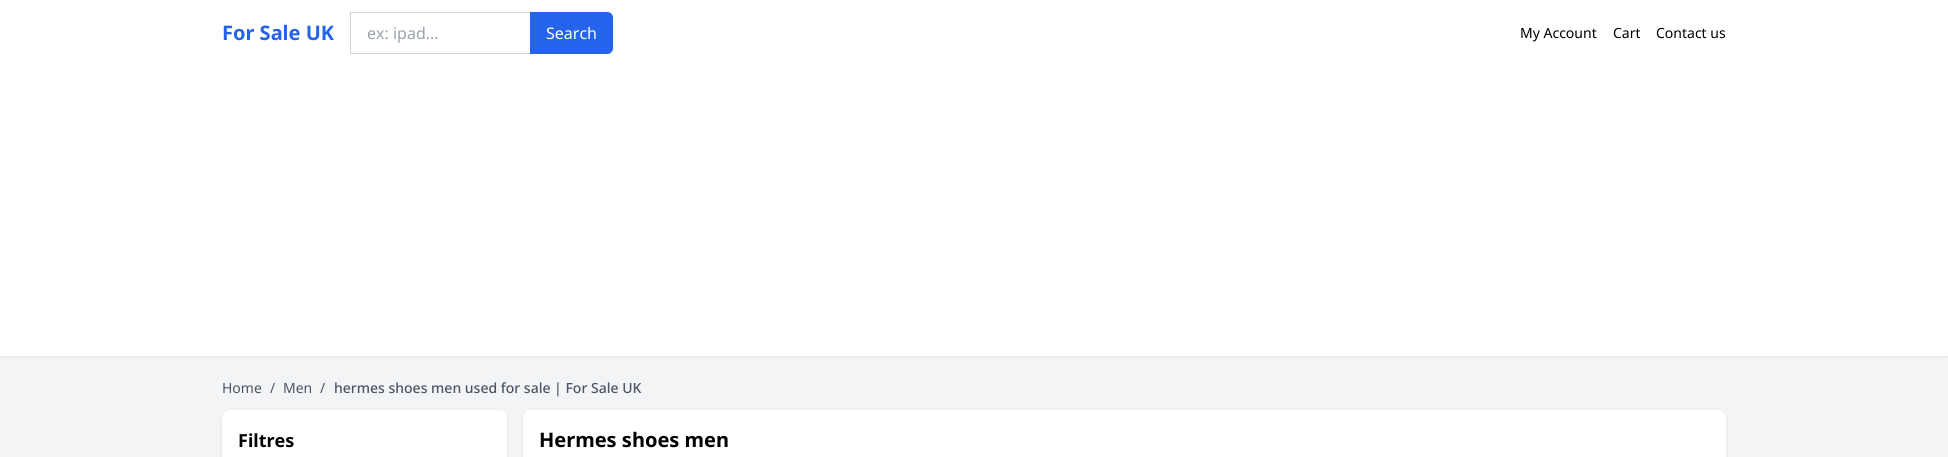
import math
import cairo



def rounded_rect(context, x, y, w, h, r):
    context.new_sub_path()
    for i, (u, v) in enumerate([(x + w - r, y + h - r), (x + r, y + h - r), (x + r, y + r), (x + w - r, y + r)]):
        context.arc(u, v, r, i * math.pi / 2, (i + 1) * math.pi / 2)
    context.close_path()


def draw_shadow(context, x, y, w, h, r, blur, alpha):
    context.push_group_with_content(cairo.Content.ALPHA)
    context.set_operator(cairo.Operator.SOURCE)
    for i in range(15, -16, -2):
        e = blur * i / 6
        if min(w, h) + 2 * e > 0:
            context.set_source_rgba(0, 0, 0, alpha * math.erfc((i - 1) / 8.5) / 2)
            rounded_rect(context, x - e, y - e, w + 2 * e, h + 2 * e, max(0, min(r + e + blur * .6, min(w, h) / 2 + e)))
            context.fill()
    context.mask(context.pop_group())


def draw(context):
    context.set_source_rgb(243 / 255, 244 / 255, 246 / 255)
    context.paint()
    context.set_source_rgb(0, 0, 0)
    draw_shadow(context, 0, 1, 1948, 356, 0, 1, 0.05)
    context.set_source_rgb(1, 1, 1)
    context.rectangle(0, 0, 1948, 356)
    context.fill()
    context.new_path()
    context.move_to(350.5, 12.5)
    context.line_to(607, 12.5)
    context.curve_to(610, 12.5, 612.5, 15, 612.5, 18)
    context.line_to(612.5, 48)
    context.curve_to(612.5, 51, 610, 53.5, 607, 53.5)
    context.line_to(350.5, 53.5)
    context.close_path()
    context.set_source_rgb(209 / 255, 213 / 255, 219 / 255)
    context.set_line_width(1)
    context.stroke()
    context.set_source_rgb(37 / 255, 99 / 255, 235 / 255)
    context.new_path()
    context.move_to(530, 12)
    context.line_to(607, 12)
    context.curve_to(610.5, 12, 613, 14.5, 613, 18)
    context.line_to(613, 48)
    context.curve_to(613, 51.5, 610.5, 54, 607, 54)
    context.line_to(530, 54)
    context.close_path()
    context.fill()
    context.set_source_rgb(0, 0, 0)
    draw_shadow(context, 222, 411, 285, 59, 8, 1.5, 0.1)
    context.set_source_rgb(1, 1, 1)
    rounded_rect(context, 222, 410, 285, 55, 8)
    context.fill()
    context.set_source_rgb(0, 0, 0)
    draw_shadow(context, 523, 411, 1203, 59, 8, 1.5, 0.1)
    context.set_source_rgb(1, 1, 1)
    rounded_rect(context, 523, 410, 1203, 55, 8)
    context.fill()
    context.select_font_face("Noto Sans", cairo.FontSlant.NORMAL, cairo.FontWeight.BOLD)
    context.set_font_size(20)
    context.set_source_rgb(37 / 255, 99 / 255, 235 / 255)
    context.move_to(222, 40)
    context.show_text("For Sale UK")
    context.select_font_face("Noto Sans")
    context.set_font_size(16)
    context.set_source_rgb(156 / 255, 163 / 255, 175 / 255)
    context.move_to(367, 39)
    context.show_text("ex: ipad...")
    context.set_source_rgb(1, 1, 1)
    context.move_to(546, 39)
    context.show_text("Search")
    context.set_font_size(14)
    context.set_source_rgb(0, 0, 0)
    context.move_to(1520, 38)
    context.show_text("My Account")
    context.move_to(1613, 38)
    context.show_text("Cart")
    context.move_to(1656, 38)
    context.show_text("Contact us")
    context.set_source_rgb(75 / 255, 85 / 255, 99 / 255)
    context.move_to(222, 393)
    context.show_text("Home")
    context.move_to(270, 393)
    context.show_text("/")
    context.move_to(283, 393)
    context.show_text("Men")
    context.move_to(320, 393)
    context.show_text("/")
    context.select_font_face("Noto Sans Medium")
    context.move_to(334, 393)
    context.show_text("hermes shoes men used for sale | For Sale UK")
    context.select_font_face("Noto Sans", cairo.FontSlant.NORMAL, cairo.FontWeight.BOLD)
    context.set_font_size(18)
    context.set_source_rgb(0, 0, 0)
    context.move_to(238, 447)
    context.show_text("Filtres")
    context.set_font_size(20)
    context.move_to(539, 447)
    context.show_text("Hermes shoes men")


surface = cairo.ImageSurface(cairo.Format.RGB24, 1948, 457)
context = cairo.Context(surface)
options = cairo.FontOptions()
options.set_hint_metrics(cairo.HintMetrics.OFF)
options.set_hint_style(cairo.HintStyle.NONE)
context.set_font_options(options)
context.set_miter_limit(4)
draw(context)
surface.write_to_png("out.png")
